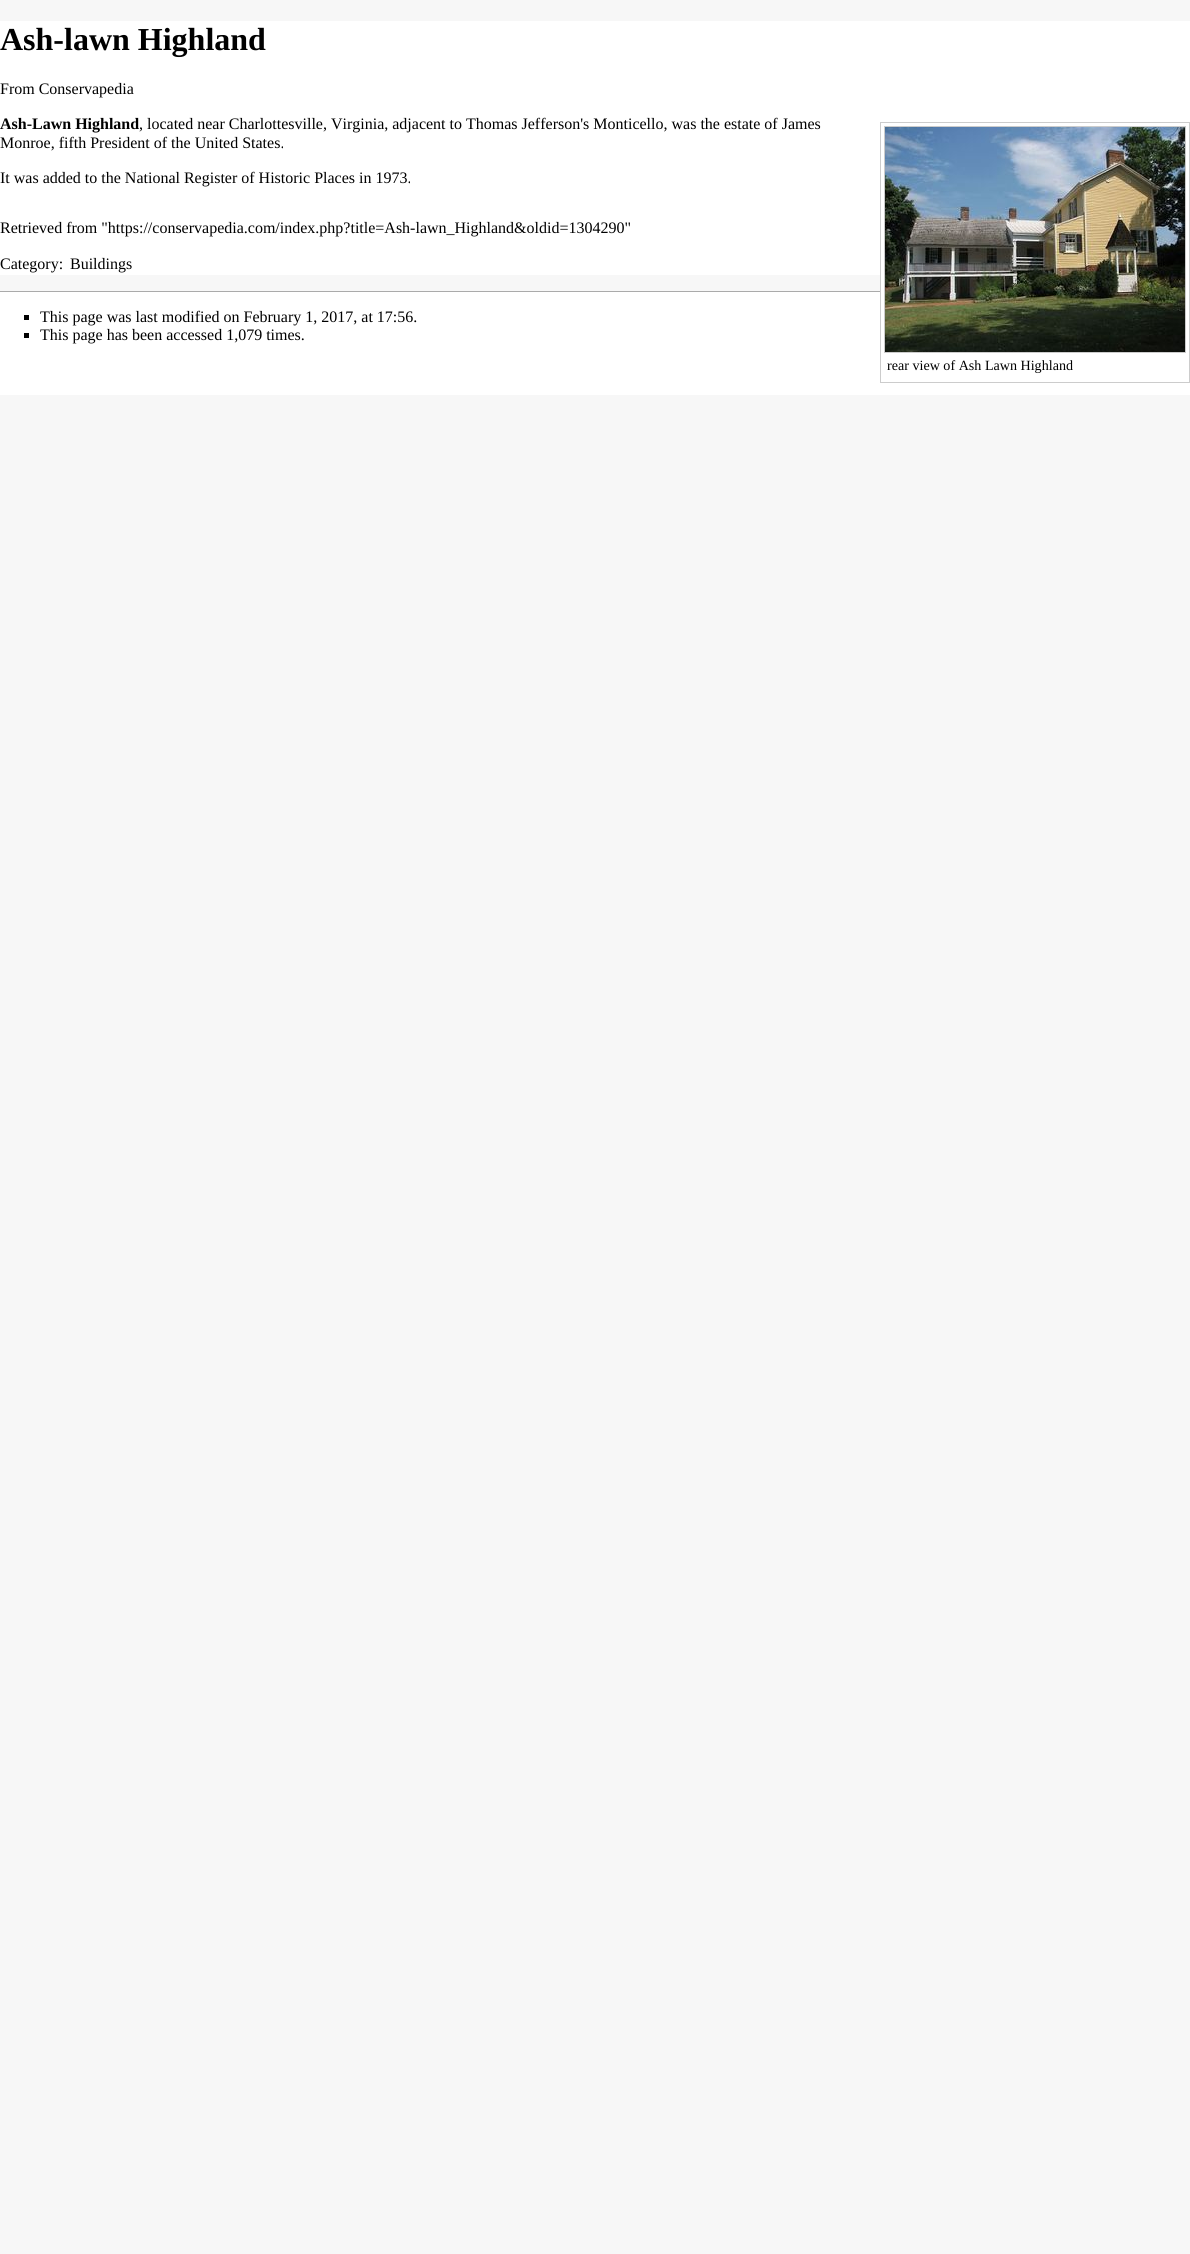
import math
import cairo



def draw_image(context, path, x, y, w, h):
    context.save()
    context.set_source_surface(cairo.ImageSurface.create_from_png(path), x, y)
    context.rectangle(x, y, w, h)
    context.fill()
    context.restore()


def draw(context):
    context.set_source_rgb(247 / 255, 247 / 255, 247 / 255)
    context.paint()
    context.set_source_rgb(1, 1, 1)
    context.rectangle(0, 21, 1190, 254)
    context.fill()
    context.rectangle(881, 275, 308, 17)
    context.fill()
    context.rectangle(0, 292, 1190, 103)
    context.fill()
    context.rectangle(880.5, 122.5, 309, 260)
    context.set_source_rgb(204 / 255, 204 / 255, 204 / 255)
    context.set_line_width(1)
    context.stroke()
    context.rectangle(884.5, 126.5, 301, 226)
    context.stroke()
    draw_image(context, "images/1.png", 885, 127, 300, 225)
    context.set_source_rgb(170 / 255, 170 / 255, 170 / 255)
    context.rectangle(0, 291, 880, 1)
    context.fill()
    context.set_source_rgb(0, 0, 0)
    context.rectangle(24, 315, 5, 5)
    context.fill()
    context.rectangle(24, 333, 5, 5)
    context.fill()
    context.select_font_face("Liberation Serif", cairo.FontSlant.NORMAL, cairo.FontWeight.BOLD)
    context.set_font_size(32)
    context.move_to(0, 50)
    context.show_text("Ash-lawn Highland")
    context.select_font_face("Liberation Serif")
    context.set_font_size(16)
    context.move_to(0, 94)
    context.show_text("From Conservapedia")
    context.select_font_face("Liberation Serif", cairo.FontSlant.NORMAL, cairo.FontWeight.BOLD)
    context.move_to(0, 129)
    context.show_text("Ash-Lawn Highland")
    context.select_font_face("Liberation Serif")
    context.move_to(139, 129)
    context.show_text(", located near Charlottesville, Virginia, adjacent to Thomas Jefferson's Monticello, was the estate of James")
    context.move_to(0, 148)
    context.show_text("Monroe, fifth President of the United States.")
    context.move_to(0, 183)
    context.show_text("It was added to the National Register of Historic Places in 1973.")
    context.set_font_size(14.1)
    context.move_to(887, 370)
    context.show_text("rear view of Ash Lawn Highland")
    context.set_font_size(16)
    context.move_to(0, 233)
    context.show_text("Retrieved from \"https://conservapedia.com/index.php?title=Ash-lawn_Highland&oldid=1304290\"")
    context.move_to(0, 269)
    context.show_text("Category:")
    context.move_to(70, 269)
    context.show_text("Buildings")
    context.move_to(40, 322)
    context.show_text("This page was last modified on February 1, 2017, at 17:56.")
    context.move_to(40, 340)
    context.show_text("This page has been accessed 1,079 times.")


surface = cairo.ImageSurface(cairo.Format.RGB24, 1190, 2254)
context = cairo.Context(surface)
options = cairo.FontOptions()
options.set_hint_metrics(cairo.HintMetrics.OFF)
options.set_hint_style(cairo.HintStyle.NONE)
context.set_font_options(options)
context.set_miter_limit(4)
draw(context)
surface.write_to_png("out.png")
